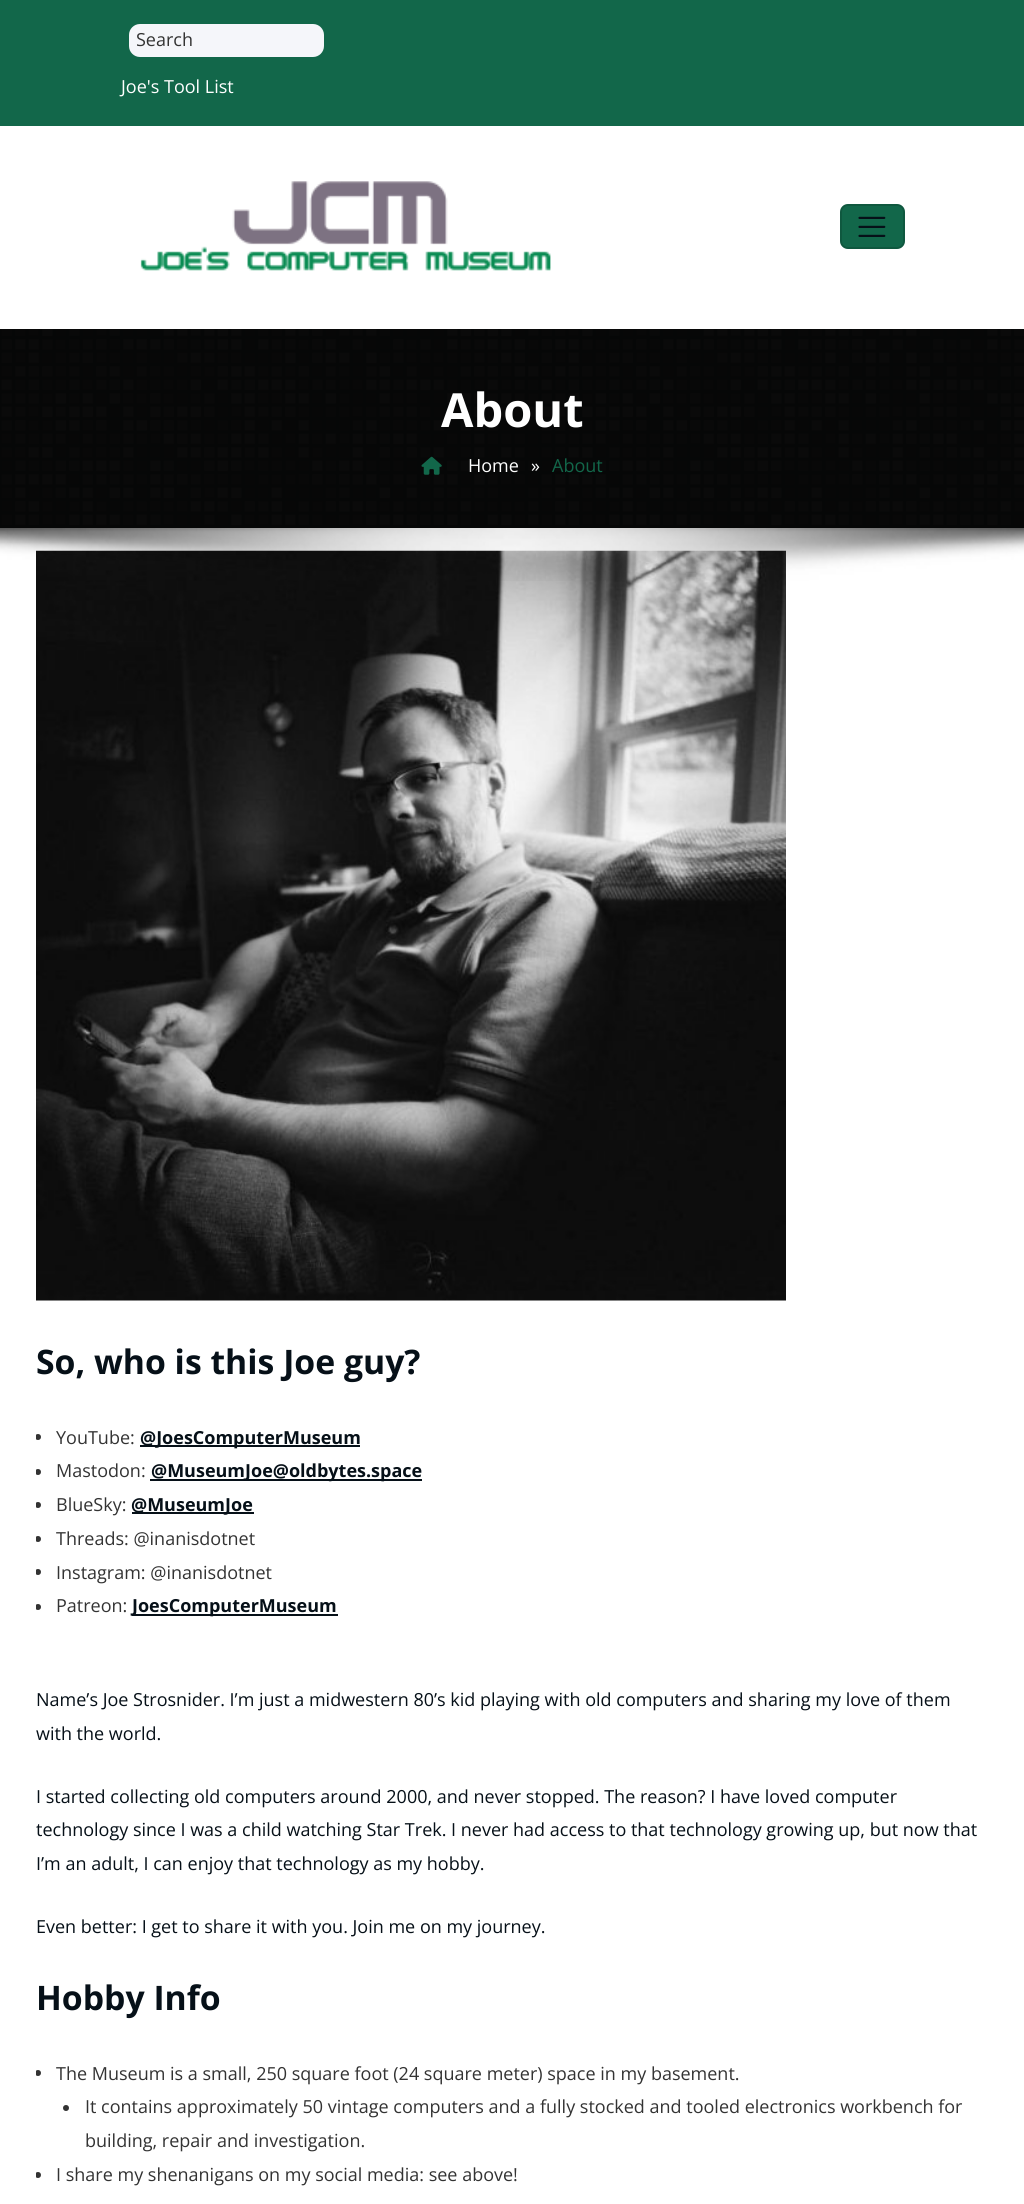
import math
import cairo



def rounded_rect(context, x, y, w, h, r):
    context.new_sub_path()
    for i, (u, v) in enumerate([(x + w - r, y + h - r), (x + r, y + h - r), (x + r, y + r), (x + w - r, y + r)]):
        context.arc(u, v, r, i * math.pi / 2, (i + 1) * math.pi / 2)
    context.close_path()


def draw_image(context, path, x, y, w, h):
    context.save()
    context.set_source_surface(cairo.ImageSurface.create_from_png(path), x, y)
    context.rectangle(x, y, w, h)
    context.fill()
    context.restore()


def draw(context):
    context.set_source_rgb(1, 1, 1)
    context.paint()
    draw_image(context, "images/1.png", 0, 329, 1024, 199)
    context.set_source_rgb(18 / 255, 103 / 255, 74 / 255)
    context.rectangle(0, 0, 1024, 126)
    context.fill()
    context.set_source_rgb(245 / 255, 246 / 255, 250 / 255)
    rounded_rect(context, 129, 24, 195, 33, 11)
    context.fill()
    draw_image(context, "images/2.png", 140, 181, 411, 90)
    context.set_source_rgb(18 / 255, 103 / 255, 74 / 255)
    rounded_rect(context, 840, 204, 65, 45, 8)
    context.fill()
    rounded_rect(context, 841, 205, 63, 43, 7)
    context.set_source_rgba(0, 0, 0, 0.15)
    context.stroke()
    draw_image(context, "images/3.png", 858, 216, 28, 21)
    context.set_source_rgba(0, 0, 0, 0.65)
    context.rectangle(0, 329, 1024, 199)
    context.fill()
    draw_image(context, "images/4.png", 421, 456, 21, 19)
    draw_image(context, "images/6.png", 36, 550, 750, 751)
    draw_image(context, "images/5.png", 0, 528, 1024, 53)
    context.save()
    context.rectangle(36, 551, 953, 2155)
    context.clip()
    context.set_source_rgb(51 / 255, 51 / 255, 51 / 255)
    context.arc(38, 1437, 3, 0, 2 * math.pi)
    context.fill()
    context.restore()
    context.set_source_rgb(6 / 255, 16 / 255, 24 / 255)
    context.rectangle(140, 1445, 220, 2)
    context.fill()
    context.save()
    context.rectangle(36, 551, 953, 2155)
    context.clip()
    context.set_source_rgb(51 / 255, 51 / 255, 51 / 255)
    context.arc(38, 1472, 3, 0, 2 * math.pi)
    context.fill()
    context.restore()
    context.rectangle(150, 1479, 272, 2)
    context.fill()
    context.save()
    context.rectangle(36, 551, 953, 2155)
    context.clip()
    context.set_source_rgb(51 / 255, 51 / 255, 51 / 255)
    context.arc(38, 1505, 3, 0, 2 * math.pi)
    context.fill()
    context.restore()
    context.rectangle(132, 1512, 122, 2)
    context.fill()
    context.save()
    context.rectangle(36, 551, 953, 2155)
    context.clip()
    context.set_source_rgb(51 / 255, 51 / 255, 51 / 255)
    context.arc(38, 1539, 3, 0, 2 * math.pi)
    context.fill()
    context.arc(38, 1572, 3, 0, 2 * math.pi)
    context.fill()
    context.arc(38, 1607, 3, 0, 2 * math.pi)
    context.fill()
    context.restore()
    context.rectangle(132, 1614, 206, 2)
    context.fill()
    context.save()
    context.rectangle(36, 551, 953, 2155)
    context.clip()
    context.set_source_rgb(51 / 255, 51 / 255, 51 / 255)
    context.arc(38, 2073, 3, 0, 2 * math.pi)
    context.fill()
    context.restore()
    context.set_source_rgb(51 / 255, 51 / 255, 51 / 255)
    context.arc(66, 2108, 3, 0, 2 * math.pi)
    context.fill()
    context.save()
    context.rectangle(36, 551, 953, 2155)
    context.clip()
    context.arc(38, 2175, 3, 0, 2 * math.pi)
    context.fill()
    context.restore()
    context.save()
    context.rectangle(137, 27, 162, 26)
    context.clip()
    context.select_font_face("Open Sans")
    context.set_font_size(18)
    context.move_to(136, 46)
    context.show_text("Search")
    context.restore()
    context.select_font_face("Open Sans")
    context.set_font_size(18)
    context.set_source_rgb(1, 1, 1)
    context.move_to(121, 93)
    context.show_text("Joe's Tool List")
    context.select_font_face("Open Sans", cairo.FontSlant.NORMAL, cairo.FontWeight.BOLD)
    context.set_font_size(47)
    context.move_to(441, 427)
    context.show_text("About")
    context.select_font_face("Open Sans")
    context.set_font_size(18)
    context.move_to(468, 472)
    context.show_text("Home")
    context.move_to(531, 472)
    context.show_text("»")
    context.set_source_rgb(18 / 255, 103 / 255, 74 / 255)
    context.move_to(552, 472)
    context.show_text("About")
    context.select_font_face("Open Sans", cairo.FontSlant.NORMAL, cairo.FontWeight.BOLD)
    context.set_font_size(33.75)
    context.set_source_rgb(6 / 255, 16 / 255, 24 / 255)
    context.move_to(36, 1374)
    context.show_text("So, who is this Joe guy?")
    context.select_font_face("Open Sans")
    context.set_font_size(18)
    context.set_source_rgb(51 / 255, 51 / 255, 51 / 255)
    context.move_to(56, 1444)
    context.show_text("YouTube:")
    context.select_font_face("Open Sans", cairo.FontSlant.NORMAL, cairo.FontWeight.BOLD)
    context.set_source_rgb(6 / 255, 16 / 255, 24 / 255)
    context.move_to(140, 1444)
    context.show_text("@JoesComputerMuseum")
    context.select_font_face("Open Sans")
    context.set_source_rgb(51 / 255, 51 / 255, 51 / 255)
    context.move_to(56, 1477)
    context.show_text("Mastodon:")
    context.select_font_face("Open Sans", cairo.FontSlant.NORMAL, cairo.FontWeight.BOLD)
    context.set_source_rgb(6 / 255, 16 / 255, 24 / 255)
    context.move_to(151, 1477)
    context.show_text("@MuseumJoe@oldbytes.space")
    context.select_font_face("Open Sans")
    context.set_source_rgb(51 / 255, 51 / 255, 51 / 255)
    context.move_to(56, 1511)
    context.show_text("BlueSky:")
    context.select_font_face("Open Sans", cairo.FontSlant.NORMAL, cairo.FontWeight.BOLD)
    context.set_source_rgb(6 / 255, 16 / 255, 24 / 255)
    context.move_to(131, 1511)
    context.show_text("@MuseumJoe")
    context.select_font_face("Open Sans")
    context.set_source_rgb(51 / 255, 51 / 255, 51 / 255)
    context.move_to(56, 1545)
    context.show_text("Threads: @inanisdotnet")
    context.move_to(56, 1579)
    context.show_text("Instagram: @inanisdotnet")
    context.move_to(56, 1612)
    context.show_text("Patreon:")
    context.select_font_face("Open Sans", cairo.FontSlant.NORMAL, cairo.FontWeight.BOLD)
    context.set_source_rgb(6 / 255, 16 / 255, 24 / 255)
    context.move_to(132, 1612)
    context.show_text("JoesComputerMuseum")
    context.select_font_face("Open Sans")
    context.move_to(36, 1706)
    context.show_text("Name’s Joe Strosnider. I’m just a midwestern 80’s kid playing with old computers and sharing my love of them")
    context.move_to(36, 1740)
    context.show_text("with the world.")
    context.move_to(36, 1803)
    context.show_text("I started collecting old computers around 2000, and never stopped. The reason? I have loved computer")
    context.move_to(36, 1836)
    context.show_text("technology since I was a child watching Star Trek. I never had access to that technology growing up, but now that")
    context.move_to(36, 1870)
    context.show_text("I’m an adult, I can enjoy that technology as my hobby.")
    context.move_to(36, 1933)
    context.show_text("Even better: I get to share it with you. Join me on my journey.")
    context.select_font_face("Open Sans", cairo.FontSlant.NORMAL, cairo.FontWeight.BOLD)
    context.set_font_size(33.75)
    context.move_to(36, 2010)
    context.show_text("Hobby Info")
    context.select_font_face("Open Sans")
    context.set_font_size(18)
    context.set_source_rgb(51 / 255, 51 / 255, 51 / 255)
    context.move_to(56, 2080)
    context.show_text("The Museum is a small, 250 square foot (24 square meter) space in my basement.")
    context.move_to(85, 2113)
    context.show_text("It contains approximately 50 vintage computers and a fully stocked and tooled electronics workbench for")
    context.move_to(85, 2147)
    context.show_text("building, repair and investigation.")
    context.move_to(56, 2181)
    context.show_text("I share my shenanigans on my social media: see above!")


surface = cairo.ImageSurface(cairo.Format.RGB24, 1024, 2204)
context = cairo.Context(surface)
options = cairo.FontOptions()
options.set_hint_metrics(cairo.HintMetrics.OFF)
options.set_hint_style(cairo.HintStyle.NONE)
context.set_font_options(options)
context.set_miter_limit(4)
draw(context)
surface.write_to_png("out.png")
